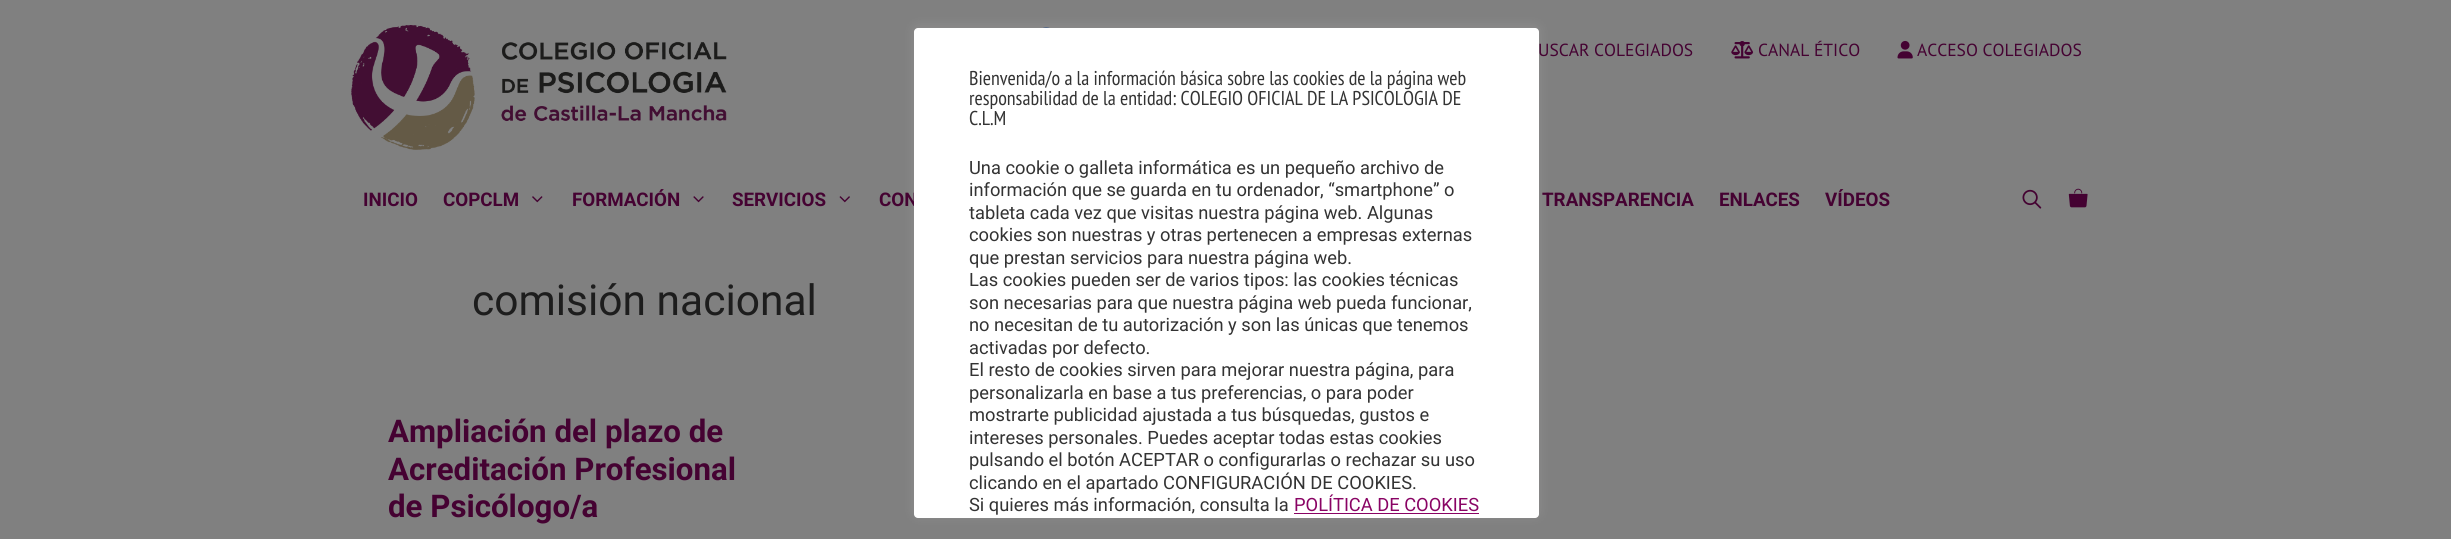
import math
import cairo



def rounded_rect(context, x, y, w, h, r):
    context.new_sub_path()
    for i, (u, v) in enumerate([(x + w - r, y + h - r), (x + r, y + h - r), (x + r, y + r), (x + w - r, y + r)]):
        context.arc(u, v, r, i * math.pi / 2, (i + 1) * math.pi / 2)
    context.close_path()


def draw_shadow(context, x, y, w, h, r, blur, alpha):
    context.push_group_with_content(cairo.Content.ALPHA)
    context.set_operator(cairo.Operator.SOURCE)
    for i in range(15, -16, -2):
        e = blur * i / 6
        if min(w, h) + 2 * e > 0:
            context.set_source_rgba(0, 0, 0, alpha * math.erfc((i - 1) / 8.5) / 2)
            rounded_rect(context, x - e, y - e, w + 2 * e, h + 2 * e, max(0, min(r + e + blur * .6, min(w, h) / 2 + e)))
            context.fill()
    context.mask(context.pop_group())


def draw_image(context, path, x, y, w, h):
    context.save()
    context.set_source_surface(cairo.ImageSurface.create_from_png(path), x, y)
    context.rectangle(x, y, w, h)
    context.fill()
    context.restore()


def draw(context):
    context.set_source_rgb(128 / 255, 128 / 255, 128 / 255)
    context.paint()
    draw_image(context, "images/1.png", 351, 25, 376, 125)
    draw_image(context, "images/2.png", 1043, 27, 7, 1)
    draw_image(context, "images/3.png", 1731, 41, 23, 18)
    draw_image(context, "images/4.png", 1897, 40, 16, 19)
    context.set_source_rgb(172 / 255, 171 / 255, 171 / 255)
    draw_shadow(context, 914, 26, 625, 490, 4, 6, 0.3)
    draw_image(context, "images/5.png", 532, 196, 11, 7)
    draw_image(context, "images/6.png", 693, 196, 11, 7)
    draw_image(context, "images/7.png", 839, 196, 11, 7)
    draw_image(context, "images/8.png", 2022, 189, 20, 20)
    draw_image(context, "images/9.png", 2068, 188, 20, 20)
    context.select_font_face("PT Sans")
    context.set_font_size(17.5)
    context.set_source_rgb(69 / 255, 2 / 255, 50 / 255)
    context.move_to(1538, 56)
    context.show_text("USCAR COLEGIADOS")
    context.move_to(1758, 56)
    context.show_text("CANAL ÉTICO")
    context.move_to(1917, 56)
    context.show_text("ACCESO COLEGIADOS")
    context.select_font_face("Roboto", cairo.FontSlant.NORMAL, cairo.FontWeight.BOLD)
    context.set_font_size(18.75)
    context.move_to(363, 206)
    context.show_text("INICIO")
    context.move_to(443, 206)
    context.show_text("COPCLM")
    context.move_to(572, 206)
    context.show_text("FORMACIÓN")
    context.move_to(732, 206)
    context.show_text("SERVICIOS")
    context.move_to(879, 206)
    context.show_text("CON")
    context.set_source_rgb(1, 1, 1)
    rounded_rect(context, 914, 28, 625, 490, 4)
    context.fill()
    context.select_font_face("Roboto")
    context.set_font_size(18.3)
    context.set_source_rgb(137 / 255, 3 / 255, 100 / 255)
    context.move_to(1294, 511)
    context.show_text("POLÍTICA DE COOKIES")
    context.rectangle(1294, 513, 185, 1)
    context.fill()
    context.set_source_rgb(51 / 255, 51 / 255, 51 / 255)
    context.move_to(969, 511)
    context.show_text("Si quieres más información, consulta la")
    context.move_to(969, 489)
    context.show_text("clicando en el apartado CONFIGURACIÓN DE COOKIES.")
    context.move_to(969, 466)
    context.show_text("pulsando el botón ACEPTAR o configurarlas o rechazar su uso")
    context.move_to(969, 444)
    context.show_text("intereses personales. Puedes aceptar todas estas cookies")
    context.move_to(969, 421)
    context.show_text("mostrarte publicidad ajustada a tus búsquedas, gustos e")
    context.move_to(969, 399)
    context.show_text("personalizarla en base a tus preferencias, o para poder")
    context.move_to(969, 376)
    context.show_text("El resto de cookies sirven para mejorar nuestra página, para")
    context.move_to(969, 354)
    context.show_text("activadas por defecto.")
    context.move_to(969, 331)
    context.show_text("no necesitan de tu autorización y son las únicas que tenemos")
    context.move_to(969, 309)
    context.show_text("son necesarias para que nuestra página web pueda funcionar,")
    context.move_to(969, 286)
    context.show_text("Las cookies pueden ser de varios tipos: las cookies técnicas")
    context.move_to(969, 264)
    context.show_text("que prestan servicios para nuestra página web.")
    context.move_to(969, 241)
    context.show_text("cookies son nuestras y otras pertenecen a empresas externas")
    context.move_to(969, 219)
    context.show_text("tableta cada vez que visitas nuestra página web. Algunas")
    context.move_to(969, 196)
    context.show_text("información que se guarda en tu ordenador, “smartphone” o")
    context.move_to(969, 174)
    context.show_text("Una cookie o galleta informática es un pequeño archivo de")
    context.select_font_face("PT Sans Narrow")
    context.set_font_size(20)
    context.move_to(969, 125)
    context.show_text("C.L.M")
    context.move_to(969, 105)
    context.show_text("responsabilidad de la entidad: COLEGIO OFICIAL DE LA PSICOLOGIA DE")
    context.move_to(969, 85)
    context.show_text("Bienvenida/o a la información básica sobre las cookies de la página web")
    context.select_font_face("Roboto", cairo.FontSlant.NORMAL, cairo.FontWeight.BOLD)
    context.set_font_size(18.75)
    context.set_source_rgb(69 / 255, 2 / 255, 50 / 255)
    context.move_to(1542, 206)
    context.show_text("TRANSPARENCIA")
    context.move_to(1719, 206)
    context.show_text("ENLACES")
    context.move_to(1825, 206)
    context.show_text("VÍDEOS")
    context.select_font_face("Roboto")
    context.set_font_size(42.5)
    context.set_source_rgb(29 / 255, 29 / 255, 29 / 255)
    context.move_to(472, 315)
    context.show_text("comisión nacional")
    context.select_font_face("Roboto", cairo.FontSlant.NORMAL, cairo.FontWeight.BOLD)
    context.set_font_size(31.25)
    context.set_source_rgb(69 / 255, 2 / 255, 50 / 255)
    context.move_to(388, 442)
    context.show_text("Ampliación del plazo de")
    context.move_to(388, 480)
    context.show_text("Acreditación Profesional")
    context.move_to(388, 517)
    context.show_text("de Psicólogo/a")


surface = cairo.ImageSurface(cairo.Format.RGB24, 2451, 539)
context = cairo.Context(surface)
options = cairo.FontOptions()
options.set_hint_metrics(cairo.HintMetrics.OFF)
options.set_hint_style(cairo.HintStyle.NONE)
context.set_font_options(options)
context.set_miter_limit(4)
draw(context)
surface.write_to_png("out.png")
